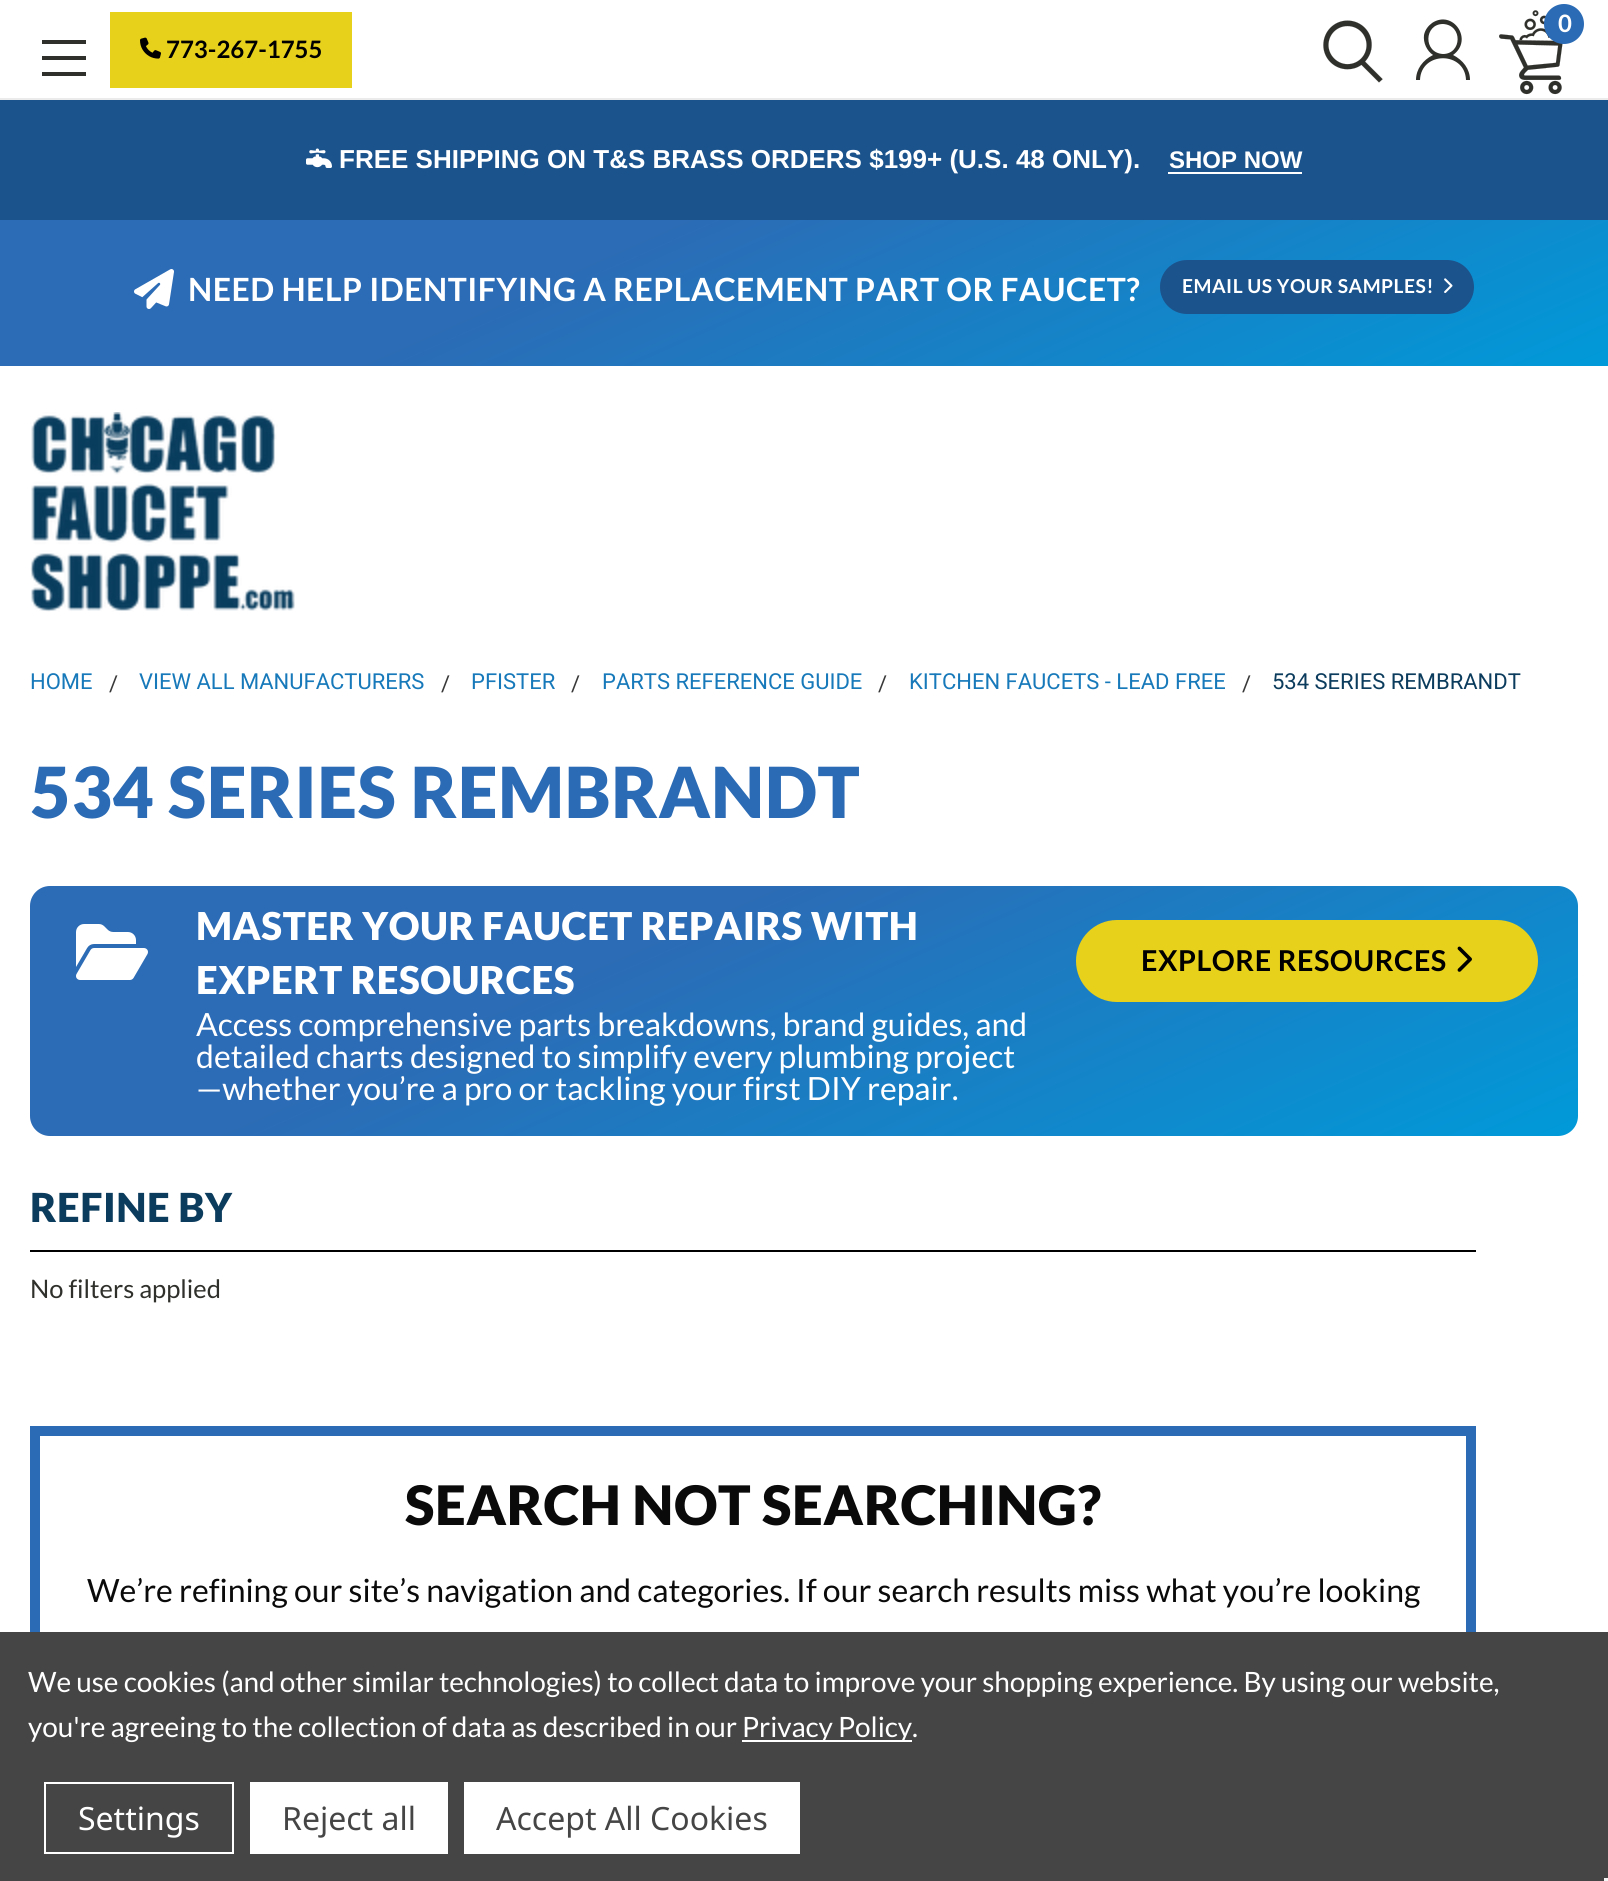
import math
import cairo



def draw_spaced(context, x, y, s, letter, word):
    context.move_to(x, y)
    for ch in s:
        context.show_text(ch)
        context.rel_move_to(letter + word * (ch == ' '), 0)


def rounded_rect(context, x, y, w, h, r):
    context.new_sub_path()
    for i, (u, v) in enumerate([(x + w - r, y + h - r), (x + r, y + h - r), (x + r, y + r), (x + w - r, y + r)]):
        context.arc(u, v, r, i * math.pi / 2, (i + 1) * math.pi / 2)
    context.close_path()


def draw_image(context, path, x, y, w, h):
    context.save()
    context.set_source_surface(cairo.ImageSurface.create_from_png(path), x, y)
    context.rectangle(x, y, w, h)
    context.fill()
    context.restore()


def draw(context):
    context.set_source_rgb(1, 1, 1)
    context.paint()
    context.set_source_rgb(235 / 255, 235 / 255, 235 / 255)
    context.rectangle(0, 98, 1608, 2)
    context.fill()
    draw_image(context, "images/1.png", 1323, 20, 60, 63)
    context.set_source_rgb(47 / 255, 47 / 255, 43 / 255)
    context.new_path()
    context.move_to(1466, 80)
    context.curve_to(1465, 51, 1421, 51, 1420, 80)
    context.line_to(1416, 80)
    context.curve_to(1416, 69, 1423, 60, 1433, 55)
    context.curve_to(1427, 51, 1423, 43, 1424, 35)
    context.curve_to(1425, 30, 1428, 26, 1432, 23)
    context.curve_to(1453, 9, 1474, 40, 1453, 55)
    context.curve_to(1463, 60, 1470, 69, 1470, 80)
    context.close_path()
    context.move_to(1443, 24)
    context.curve_to(1424, 24, 1423, 53, 1443, 54)
    context.curve_to(1462, 54, 1463, 25, 1443, 24)
    context.close_path()
    context.fill()
    draw_image(context, "images/2.png", 1499, 10, 64, 85)
    context.set_source_rgb(43 / 255, 107 / 255, 181 / 255)
    context.arc(1564, 24, 20, 0, 2 * math.pi)
    context.fill()
    context.set_source_rgb(47 / 255, 47 / 255, 43 / 255)
    context.rectangle(42, 56, 44, 4)
    context.fill()
    context.rectangle(42, 40, 44, 4)
    context.fill()
    context.rectangle(42, 72, 44, 4)
    context.fill()
    context.set_source_rgb(232 / 255, 209 / 255, 27 / 255)
    context.rectangle(110, 12, 242, 76)
    context.fill()
    draw_image(context, "images/3.png", 140, 37, 21, 22)
    context.set_source_rgb(27 / 255, 83 / 255, 140 / 255)
    context.rectangle(0, 100, 1608, 120)
    context.fill()
    draw_image(context, "images/4.png", 306, 148, 26, 20)
    context.set_source_rgb(1, 1, 1)
    context.rectangle(1168, 172, 134, 2)
    context.fill()
    gradient = cairo.LinearGradient(644, -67, 964, 653)
    gradient.add_color_stop_rgba(0, 44 / 255, 107 / 255, 181 / 255, 1)
    gradient.add_color_stop_rgba(0.35, 44 / 255, 107 / 255, 181 / 255, 1)
    gradient.add_color_stop_rgba(1, 0, 154 / 255, 217 / 255, 1)
    context.set_source(gradient)
    context.rectangle(0, 220, 1608, 146)
    context.fill()
    draw_image(context, "images/5.png", 134, 269, 40, 40)
    context.set_source_rgb(27 / 255, 83 / 255, 140 / 255)
    rounded_rect(context, 1160, 260, 314, 54, 27)
    context.fill()
    draw_image(context, "images/6.png", 1444, 278, 9, 15)
    draw_image(context, "images/7.png", 30, 412, 265, 200)
    gradient = cairo.LinearGradient(630, 619, 978, 1403)
    gradient.add_color_stop_rgba(0, 44 / 255, 107 / 255, 181 / 255, 1)
    gradient.add_color_stop_rgba(0.35, 44 / 255, 107 / 255, 181 / 255, 1)
    gradient.add_color_stop_rgba(1, 0, 154 / 255, 217 / 255, 1)
    context.set_source(gradient)
    rounded_rect(context, 30, 886, 1548, 250, 20)
    context.fill()
    draw_image(context, "images/8.png", 76, 924, 72, 56)
    context.set_source_rgb(232 / 255, 209 / 255, 27 / 255)
    rounded_rect(context, 1076, 920, 462, 82, 41)
    context.fill()
    draw_image(context, "images/9.png", 1457, 946, 15, 26)
    context.set_source_rgb(0, 0, 0)
    context.rectangle(30, 1250, 1446, 2)
    context.fill()
    context.rectangle(35, 1431, 1436, 412)
    context.set_source_rgb(43 / 255, 107 / 255, 181 / 255)
    context.set_line_width(10)
    context.stroke()
    context.set_source_rgb(69 / 255, 69 / 255, 69 / 255)
    context.rectangle(0, 1632, 1608, 249)
    context.fill()
    context.set_source_rgb(1, 1, 1)
    context.rectangle(742, 1740, 170, 2)
    context.fill()
    context.rectangle(45, 1783, 188, 70)
    context.set_line_width(2)
    context.stroke()
    context.rectangle(250, 1782, 198, 72)
    context.fill()
    context.rectangle(464, 1782, 336, 72)
    context.fill()
    context.set_source_rgb(245 / 255, 245 / 255, 245 / 255)
    context.rectangle(1604, 1878, 4, 3)
    context.fill()
    context.select_font_face("Lato", cairo.FontSlant.NORMAL, cairo.FontWeight.BOLD)
    context.set_font_size(24)
    context.set_source_rgb(1, 1, 1)
    context.move_to(1558, 32)
    context.show_text("0")
    context.set_source_rgb(0, 0, 0)
    context.move_to(166, 58)
    context.show_text("773-267-1755")
    context.select_font_face("Liberation Sans", cairo.FontSlant.NORMAL, cairo.FontWeight.BOLD)
    context.set_font_size(26)
    context.set_source_rgb(1, 1, 1)
    context.move_to(339, 168)
    context.show_text("FREE SHIPPING ON T&S BRASS ORDERS $199+ (U.S. 48 ONLY).")
    context.set_font_size(24)
    context.move_to(1169, 168)
    context.show_text("SHOP NOW")
    context.select_font_face("Lato", cairo.FontSlant.NORMAL, cairo.FontWeight.BOLD)
    context.set_font_size(32)
    draw_spaced(context, 188, 301, "NEED HELP IDENTIFYING A REPLACEMENT PART OR FAUCET?", 0.5, 0)
    context.set_font_size(19.25)
    draw_spaced(context, 1182, 293, "EMAIL US YOUR SAMPLES!", 0.5, 0)
    context.select_font_face("Roboto")
    context.set_font_size(22)
    context.set_source_rgb(23 / 255, 121 / 255, 186 / 255)
    context.move_to(30, 689)
    context.show_text("HOME")
    context.set_source_rgb(57 / 255, 57 / 255, 57 / 255)
    context.move_to(109, 691)
    context.show_text("/")
    context.set_source_rgb(23 / 255, 121 / 255, 186 / 255)
    context.move_to(139, 689)
    context.show_text("VIEW ALL MANUFACTURERS")
    context.set_source_rgb(57 / 255, 57 / 255, 57 / 255)
    context.move_to(441, 691)
    context.show_text("/")
    context.set_source_rgb(23 / 255, 121 / 255, 186 / 255)
    context.move_to(471, 689)
    context.show_text("PFISTER")
    context.set_source_rgb(57 / 255, 57 / 255, 57 / 255)
    context.move_to(571, 691)
    context.show_text("/")
    context.set_source_rgb(23 / 255, 121 / 255, 186 / 255)
    context.move_to(602, 689)
    context.show_text("PARTS REFERENCE GUIDE")
    context.set_source_rgb(57 / 255, 57 / 255, 57 / 255)
    context.move_to(878, 691)
    context.show_text("/")
    context.set_source_rgb(23 / 255, 121 / 255, 186 / 255)
    context.move_to(909, 689)
    context.show_text("KITCHEN FAUCETS - LEAD FREE")
    context.set_source_rgb(57 / 255, 57 / 255, 57 / 255)
    context.move_to(1242, 691)
    context.show_text("/")
    context.set_source_rgb(12 / 255, 60 / 255, 93 / 255)
    context.move_to(1272, 689)
    context.show_text("534 SERIES REMBRANDT")
    context.select_font_face("Lato Black")
    context.set_font_size(70.4)
    context.set_source_rgb(43 / 255, 107 / 255, 181 / 255)
    draw_spaced(context, 30, 818, "534 SERIES REMBRANDT", 0.5, 0)
    context.set_font_size(38.4)
    context.set_source_rgb(1, 1, 1)
    draw_spaced(context, 196, 940, "MASTER YOUR FAUCET REPAIRS WITH", 0.5, 0)
    draw_spaced(context, 196, 994, "EXPERT RESOURCES", 0.5, 0)
    context.select_font_face("Lato")
    context.set_font_size(32)
    context.move_to(196, 1036)
    context.show_text("Access comprehensive parts breakdowns, brand guides, and")
    context.move_to(196, 1068)
    context.show_text("detailed charts designed to simplify every plumbing project")
    context.move_to(196, 1100)
    context.show_text("—whether you’re a pro or tackling your first DIY repair.")
    context.select_font_face("Lato", cairo.FontSlant.NORMAL, cairo.FontWeight.BOLD)
    context.set_font_size(28.75)
    context.set_source_rgb(0, 0, 0)
    draw_spaced(context, 1141, 971, "EXPLORE RESOURCES", 0.5, 0)
    context.select_font_face("Lato Black")
    context.set_font_size(40)
    context.set_source_rgb(12 / 255, 60 / 255, 93 / 255)
    draw_spaced(context, 30, 1222, "REFINE BY", 0.5, 0)
    context.select_font_face("Lato")
    context.set_font_size(25.5)
    context.set_source_rgb(47 / 255, 47 / 255, 43 / 255)
    context.move_to(30, 1298)
    context.show_text("No filters applied")
    context.select_font_face("Lato Black")
    context.set_font_size(54.4)
    context.set_source_rgb(10 / 255, 10 / 255, 10 / 255)
    draw_spaced(context, 405, 1525, "SEARCH NOT SEARCHING?", 0.5, 0)
    context.select_font_face("Lato")
    context.set_font_size(32)
    context.move_to(87, 1602)
    context.show_text("We’re refining our site’s navigation and categories. If our search results miss what you’re looking")
    context.set_font_size(28)
    context.set_source_rgb(1, 1, 1)
    draw_spaced(context, 28, 1692, "We use cookies (and other similar technologies) to collect data to improve your shopping experience. By using our website,", -0.1, 0)
    draw_spaced(context, 28, 1737, "you're agreeing to the collection of data as described in our", -0.1, 0)
    draw_spaced(context, 742, 1737, "Privacy Policy.", -0.1, 0)
    context.select_font_face("Noto Sans")
    context.set_font_size(32)
    context.move_to(78, 1830)
    context.show_text("Settings")
    context.set_source_rgb(69 / 255, 69 / 255, 69 / 255)
    context.move_to(282, 1830)
    context.show_text("Reject all")
    context.move_to(496, 1830)
    context.show_text("Accept All Cookies")


surface = cairo.ImageSurface(cairo.Format.RGB24, 1608, 1881)
context = cairo.Context(surface)
options = cairo.FontOptions()
options.set_hint_metrics(cairo.HintMetrics.OFF)
options.set_hint_style(cairo.HintStyle.NONE)
context.set_font_options(options)
context.set_miter_limit(4)
draw(context)
surface.write_to_png("out.png")
